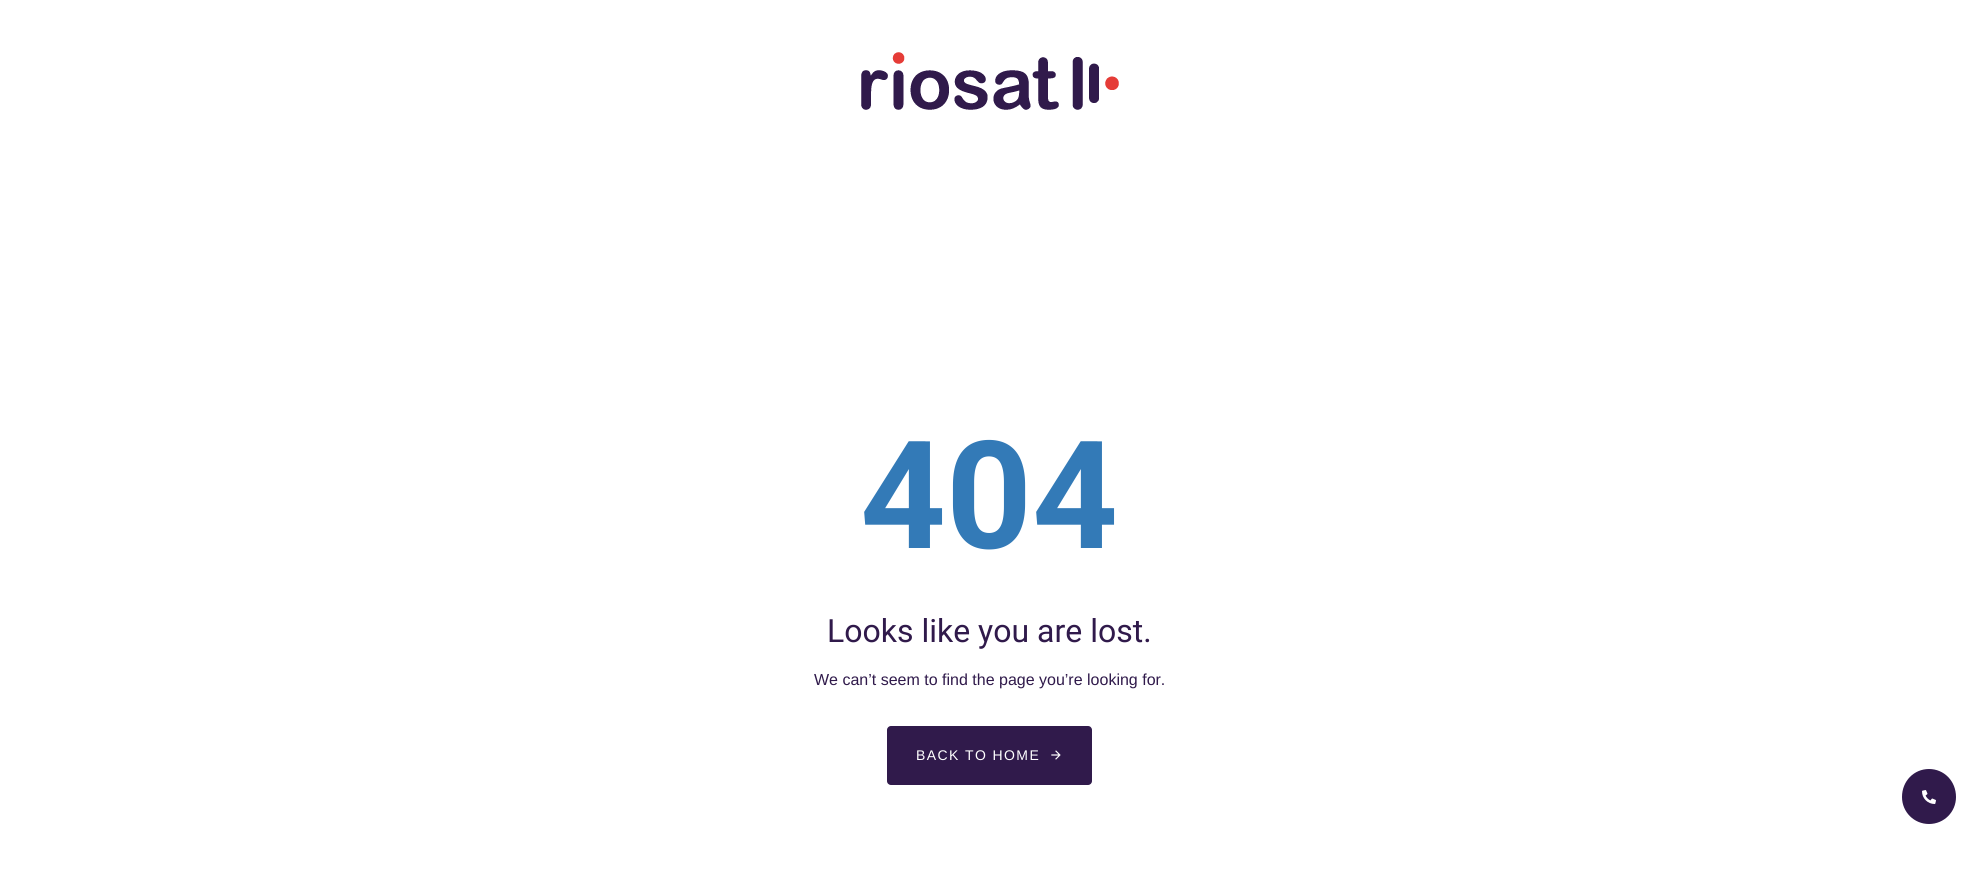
import math
import cairo



def draw_spaced(context, x, y, s, letter, word):
    context.move_to(x, y)
    for ch in s:
        context.show_text(ch)
        context.rel_move_to(letter + word * (ch == ' '), 0)


def rounded_rect(context, x, y, w, h, r):
    context.new_sub_path()
    for i, (u, v) in enumerate([(x + w - r, y + h - r), (x + r, y + h - r), (x + r, y + r), (x + w - r, y + r)]):
        context.arc(u, v, r, i * math.pi / 2, (i + 1) * math.pi / 2)
    context.close_path()


def draw_image(context, path, x, y, w, h):
    context.save()
    context.set_source_surface(cairo.ImageSurface.create_from_png(path), x, y)
    context.rectangle(x, y, w, h)
    context.fill()
    context.restore()


def draw(context):
    context.set_source_rgb(1, 1, 1)
    context.paint()
    draw_image(context, "images/1.png", 861, 52, 258, 58)
    context.set_source_rgb(48 / 255, 26 / 255, 75 / 255)
    context.new_path()
    context.move_to(1902, 797)
    context.curve_to(1902, 781, 1914, 769, 1929, 769)
    context.curve_to(1944, 769, 1956, 781, 1956, 797)
    context.curve_to(1956, 812, 1944, 824, 1929, 824)
    context.curve_to(1914, 824, 1902, 812, 1902, 797)
    context.close_path()
    context.fill()
    draw_image(context, "images/2.png", 1922, 790, 14, 14)
    rounded_rect(context, 887, 726, 205, 59, 4)
    context.fill()
    draw_image(context, "images/3.png", 1051, 750, 10, 10)
    context.select_font_face("Roboto", cairo.FontSlant.NORMAL, cairo.FontWeight.BOLD)
    context.set_font_size(150)
    context.set_source_rgb(51 / 255, 122 / 255, 183 / 255)
    context.move_to(860, 548)
    context.show_text("404")
    context.select_font_face("Roboto")
    context.set_font_size(32)
    context.set_source_rgb(48 / 255, 26 / 255, 75 / 255)
    context.move_to(827, 642)
    context.show_text("Looks like you are lost.")
    context.select_font_face("Liberation Sans")
    context.set_font_size(16)
    context.move_to(814, 685)
    context.show_text("We can’t seem to find the page you’re looking for.")
    context.set_font_size(14)
    context.set_source_rgb(1, 1, 1)
    draw_spaced(context, 916, 760, "BACK TO HOME", 1.4, 0)


surface = cairo.ImageSurface(cairo.Format.RGB24, 1979, 878)
context = cairo.Context(surface)
options = cairo.FontOptions()
options.set_hint_metrics(cairo.HintMetrics.OFF)
options.set_hint_style(cairo.HintStyle.NONE)
context.set_font_options(options)
context.set_miter_limit(4)
draw(context)
surface.write_to_png("out.png")
